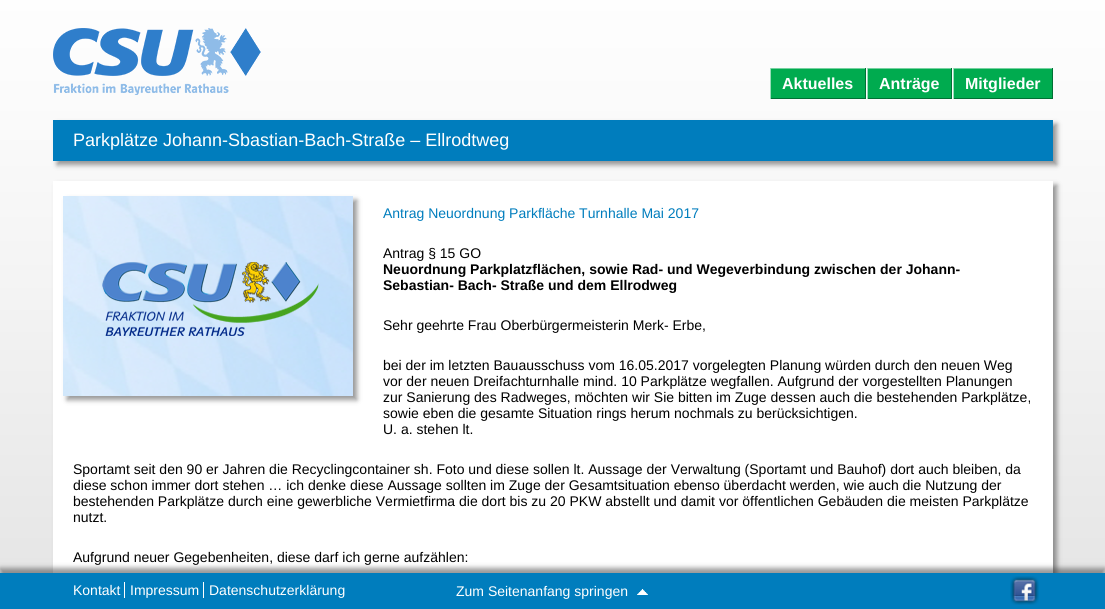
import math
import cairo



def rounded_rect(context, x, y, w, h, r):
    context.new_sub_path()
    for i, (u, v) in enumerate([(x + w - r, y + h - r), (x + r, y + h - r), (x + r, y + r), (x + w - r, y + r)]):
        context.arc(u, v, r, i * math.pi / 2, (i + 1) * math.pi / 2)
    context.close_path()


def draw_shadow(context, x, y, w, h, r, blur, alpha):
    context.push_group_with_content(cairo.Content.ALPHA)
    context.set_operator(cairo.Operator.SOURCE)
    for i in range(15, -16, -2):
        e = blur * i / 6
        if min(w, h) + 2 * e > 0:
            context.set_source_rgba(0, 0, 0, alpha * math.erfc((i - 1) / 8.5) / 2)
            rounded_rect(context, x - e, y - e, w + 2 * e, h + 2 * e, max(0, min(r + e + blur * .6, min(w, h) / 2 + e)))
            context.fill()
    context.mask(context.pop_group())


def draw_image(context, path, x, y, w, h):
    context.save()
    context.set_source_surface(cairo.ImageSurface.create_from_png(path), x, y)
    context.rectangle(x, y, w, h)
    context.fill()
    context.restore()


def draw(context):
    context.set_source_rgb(1, 1, 1)
    context.paint()
    draw_image(context, "images/1.png", 0, 0, 1105, 573)
    draw_image(context, "images/2.png", 53, 28, 208, 67)
    context.set_source_rgb(0, 171 / 255, 79 / 255)
    context.rectangle(771, 69, 94, 29)
    context.fill()
    context.set_source_rgb(116 / 255, 209 / 255, 159 / 255)
    context.rectangle(770, 68, 96, 1)
    context.fill()
    context.set_source_rgb(0, 112 / 255, 52 / 255)
    context.rectangle(865, 68, 1, 31)
    context.fill()
    context.rectangle(770, 98, 96, 1)
    context.fill()
    context.set_source_rgb(153 / 255, 221 / 255, 185 / 255)
    context.rectangle(770, 68, 1, 31)
    context.fill()
    context.set_source_rgb(0, 171 / 255, 79 / 255)
    context.rectangle(868, 69, 83, 29)
    context.fill()
    context.set_source_rgb(116 / 255, 209 / 255, 159 / 255)
    context.rectangle(867, 68, 85, 1)
    context.fill()
    context.set_source_rgb(0, 112 / 255, 52 / 255)
    context.rectangle(951, 68, 1, 31)
    context.fill()
    context.rectangle(867, 98, 85, 1)
    context.fill()
    context.set_source_rgb(153 / 255, 221 / 255, 185 / 255)
    context.rectangle(867, 68, 1, 31)
    context.fill()
    context.set_source_rgb(0, 171 / 255, 79 / 255)
    context.rectangle(954, 69, 98, 29)
    context.fill()
    context.set_source_rgb(116 / 255, 209 / 255, 159 / 255)
    context.rectangle(953, 68, 100, 1)
    context.fill()
    context.set_source_rgb(0, 112 / 255, 52 / 255)
    context.rectangle(1052, 68, 1, 31)
    context.fill()
    context.rectangle(953, 98, 100, 1)
    context.fill()
    context.set_source_rgb(153 / 255, 221 / 255, 185 / 255)
    context.rectangle(953, 68, 1, 31)
    context.fill()
    context.set_source_rgb(50 / 255, 50 / 255, 50 / 255)
    draw_shadow(context, 57, 124, 1000, 41, 0, 2.5, 0.5)
    context.set_source_rgb(0, 125 / 255, 189 / 255)
    context.rectangle(53, 120, 1000, 41)
    context.fill()
    context.set_source_rgb(50 / 255, 50 / 255, 50 / 255)
    draw_shadow(context, 57, 185, 1000, 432, 0, 2.5, 0.5)
    context.set_source_rgb(1, 1, 1)
    context.rectangle(53, 181, 1000, 392)
    context.fill()
    context.set_source_rgb(50 / 255, 50 / 255, 50 / 255)
    draw_shadow(context, 67, 200, 290, 200, 0, 2.5, 0.5)
    draw_image(context, "images/3.png", 63, 196, 290, 200)
    draw_shadow(context, 0, 568, 1105, 36, 0, 2.5, 0.5)
    context.set_source_rgb(0, 125 / 255, 189 / 255)
    context.rectangle(0, 573, 1105, 36)
    context.fill()
    context.set_source_rgb(1, 1, 1)
    context.rectangle(124, 582, 1, 16)
    context.fill()
    context.rectangle(203, 582, 1, 16)
    context.fill()
    draw_image(context, "images/4.png", 637, 589, 11, 6)
    draw_image(context, "images/5.png", 1010, 576, 29, 29)
    context.select_font_face("Liberation Sans", cairo.FontSlant.NORMAL, cairo.FontWeight.BOLD)
    context.set_font_size(16)
    context.move_to(782, 89)
    context.show_text("Aktuelles")
    context.move_to(879, 89)
    context.show_text("Anträge")
    context.move_to(965, 89)
    context.show_text("Mitglieder")
    context.select_font_face("Liberation Sans")
    context.set_font_size(18)
    context.move_to(73, 146)
    context.show_text("Parkplätze Johann-Sbastian-Bach-Straße – Ellrodtweg")
    context.set_font_size(14)
    context.set_source_rgb(0, 125 / 255, 189 / 255)
    context.move_to(383, 218)
    context.show_text("Antrag Neuordnung Parkfläche Turnhalle Mai 2017")
    context.set_source_rgb(0, 0, 0)
    context.move_to(383, 258)
    context.show_text("Antrag § 15 GO")
    context.select_font_face("Liberation Sans", cairo.FontSlant.NORMAL, cairo.FontWeight.BOLD)
    context.move_to(383, 274)
    context.show_text("Neuordnung Parkplatzflächen, sowie Rad- und Wegeverbindung zwischen der Johann-")
    context.move_to(383, 290)
    context.show_text("Sebastian- Bach- Straße und dem Ellrodweg")
    context.select_font_face("Liberation Sans")
    context.move_to(383, 330)
    context.show_text("Sehr geehrte Frau Oberbürgermeisterin Merk- Erbe,")
    context.move_to(383, 370)
    context.show_text("bei der im letzten Bauausschuss vom 16.05.2017 vorgelegten Planung würden durch den neuen Weg")
    context.move_to(383, 386)
    context.show_text("vor der neuen Dreifachturnhalle mind. 10 Parkplätze wegfallen. Aufgrund der vorgestellten Planungen")
    context.move_to(383, 402)
    context.show_text("zur Sanierung des Radweges, möchten wir Sie bitten im Zuge dessen auch die bestehenden Parkplätze,")
    context.move_to(383, 418)
    context.show_text("sowie eben die gesamte Situation rings herum nochmals zu berücksichtigen.")
    context.move_to(383, 434)
    context.show_text("U. a. stehen lt.")
    context.move_to(73, 474)
    context.show_text("Sportamt seit den 90 er Jahren die Recyclingcontainer sh. Foto und diese sollen lt. Aussage der Verwaltung (Sportamt und Bauhof) dort auch bleiben, da")
    context.move_to(73, 490)
    context.show_text("diese schon immer dort stehen … ich denke diese Aussage sollten im Zuge der Gesamtsituation ebenso überdacht werden, wie auch die Nutzung der")
    context.move_to(73, 506)
    context.show_text("bestehenden Parkplätze durch eine gewerbliche Vermietfirma die dort bis zu 20 PKW abstellt und damit vor öffentlichen Gebäuden die meisten Parkplätze")
    context.move_to(73, 522)
    context.show_text("nutzt.")
    context.move_to(73, 562)
    context.show_text("Aufgrund neuer Gegebenheiten, diese darf ich gerne aufzählen:")
    context.set_source_rgb(1, 1, 1)
    context.move_to(73, 595)
    context.show_text("Kontakt")
    context.move_to(130, 595)
    context.show_text("Impressum")
    context.move_to(209, 595)
    context.show_text("Datenschutzerklärung")
    context.move_to(456, 596)
    context.show_text("Zum Seitenanfang springen")


surface = cairo.ImageSurface(cairo.Format.RGB24, 1105, 609)
context = cairo.Context(surface)
options = cairo.FontOptions()
options.set_hint_metrics(cairo.HintMetrics.OFF)
options.set_hint_style(cairo.HintStyle.NONE)
context.set_font_options(options)
context.set_miter_limit(4)
draw(context)
surface.write_to_png("out.png")
